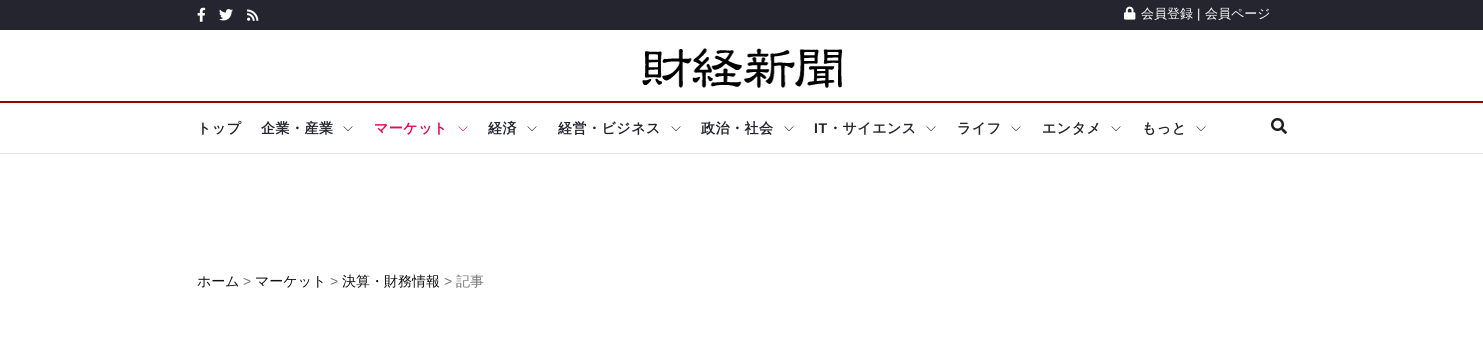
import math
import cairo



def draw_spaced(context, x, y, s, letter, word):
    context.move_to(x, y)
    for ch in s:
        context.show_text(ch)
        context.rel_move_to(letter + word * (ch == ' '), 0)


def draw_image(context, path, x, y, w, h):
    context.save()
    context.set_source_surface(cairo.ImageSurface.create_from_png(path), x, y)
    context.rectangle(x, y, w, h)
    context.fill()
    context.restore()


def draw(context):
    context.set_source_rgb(1, 1, 1)
    context.paint()
    context.set_source_rgb(36 / 255, 37 / 255, 47 / 255)
    context.rectangle(0, 0, 1483, 30)
    context.fill()
    draw_image(context, "images/1.png", 197, 7, 9, 15)
    draw_image(context, "images/2.png", 219, 9, 14, 12)
    draw_image(context, "images/3.png", 247, 9, 12, 12)
    draw_image(context, "images/4.png", 1124, 6, 12, 14)
    context.set_source_rgb(153 / 255, 1 / 255, 1 / 255)
    context.rectangle(0, 101, 1483, 2)
    context.fill()
    draw_image(context, "images/5.png", 642, 48, 200, 40)
    context.set_source_rgb(231 / 255, 231 / 255, 231 / 255)
    context.rectangle(0, 153, 1483, 1)
    context.fill()
    draw_image(context, "images/6.png", 343, 126, 10, 6)
    draw_image(context, "images/7.png", 458, 126, 10, 6)
    draw_image(context, "images/6.png", 527, 126, 10, 6)
    draw_image(context, "images/6.png", 671, 126, 10, 6)
    draw_image(context, "images/6.png", 784, 126, 10, 6)
    draw_image(context, "images/6.png", 926, 126, 10, 6)
    draw_image(context, "images/6.png", 1011, 126, 10, 6)
    draw_image(context, "images/6.png", 1111, 126, 10, 6)
    draw_image(context, "images/6.png", 1196, 126, 10, 6)
    draw_image(context, "images/8.png", 1271, 118, 16, 16)
    context.select_font_face("WenQuanYi Zen Hei Medium")
    context.set_font_size(13)
    context.set_source_rgb(1, 1, 1)
    context.move_to(1141, 18)
    context.show_text("会員登録")
    context.select_font_face("Liberation Sans")
    context.move_to(1197, 18)
    context.show_text("|")
    context.select_font_face("WenQuanYi Zen Hei Medium")
    context.move_to(1205, 18)
    context.show_text("会員ページ")
    context.select_font_face("WenQuanYi Zen Hei", cairo.FontSlant.NORMAL, cairo.FontWeight.BOLD)
    context.set_font_size(14)
    context.set_source_rgb(36 / 255, 37 / 255, 47 / 255)
    draw_spaced(context, 197, 133, "トップ", 0.5, 0)
    draw_spaced(context, 261, 133, "企業・産業", 0.5, 0)
    context.set_source_rgb(235 / 255, 2 / 255, 84 / 255)
    draw_spaced(context, 374, 133, "マーケット", 0.5, 0)
    context.set_source_rgb(36 / 255, 37 / 255, 47 / 255)
    draw_spaced(context, 488, 133, "経済", 0.5, 0)
    draw_spaced(context, 558, 133, "経営・ビジネス", 0.5, 0)
    draw_spaced(context, 701, 133, "政治・社会", 0.5, 0)
    context.select_font_face("Liberation Sans", cairo.FontSlant.NORMAL, cairo.FontWeight.BOLD)
    draw_spaced(context, 814, 133, "IT", 0.5, 0)
    context.select_font_face("WenQuanYi Zen Hei", cairo.FontSlant.NORMAL, cairo.FontWeight.BOLD)
    draw_spaced(context, 828, 133, "・サイエンス", 0.5, 0)
    draw_spaced(context, 957, 133, "ライフ", 0.5, 0)
    draw_spaced(context, 1042, 133, "エンタメ", 0.5, 0)
    draw_spaced(context, 1142, 133, "もっと", 0.5, 0)
    context.select_font_face("WenQuanYi Zen Hei Medium")
    context.set_source_rgb(17 / 255, 17 / 255, 17 / 255)
    context.move_to(197, 286)
    context.show_text("ホーム")
    context.select_font_face("Liberation Sans")
    context.set_source_rgb(119 / 255, 119 / 255, 119 / 255)
    context.move_to(243, 286)
    context.show_text(">")
    context.select_font_face("WenQuanYi Zen Hei Medium")
    context.set_source_rgb(17 / 255, 17 / 255, 17 / 255)
    context.move_to(255, 286)
    context.show_text("マーケット")
    context.select_font_face("Liberation Sans")
    context.set_source_rgb(119 / 255, 119 / 255, 119 / 255)
    context.move_to(330, 286)
    context.show_text(">")
    context.select_font_face("WenQuanYi Zen Hei Medium")
    context.set_source_rgb(17 / 255, 17 / 255, 17 / 255)
    context.move_to(342, 286)
    context.show_text("決算・財務情報")
    context.select_font_face("Liberation Sans")
    context.set_source_rgb(119 / 255, 119 / 255, 119 / 255)
    context.move_to(444, 286)
    context.show_text(">")
    context.select_font_face("WenQuanYi Zen Hei Medium")
    context.move_to(456, 286)
    context.show_text("記事")


surface = cairo.ImageSurface(cairo.Format.RGB24, 1483, 354)
context = cairo.Context(surface)
options = cairo.FontOptions()
options.set_hint_metrics(cairo.HintMetrics.OFF)
options.set_hint_style(cairo.HintStyle.NONE)
context.set_font_options(options)
context.set_miter_limit(4)
draw(context)
surface.write_to_png("out.png")
